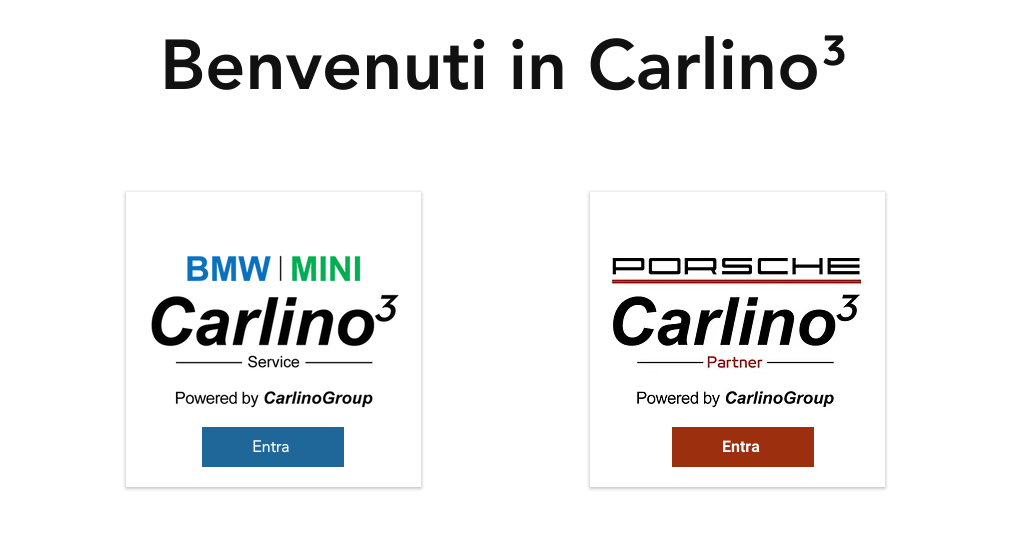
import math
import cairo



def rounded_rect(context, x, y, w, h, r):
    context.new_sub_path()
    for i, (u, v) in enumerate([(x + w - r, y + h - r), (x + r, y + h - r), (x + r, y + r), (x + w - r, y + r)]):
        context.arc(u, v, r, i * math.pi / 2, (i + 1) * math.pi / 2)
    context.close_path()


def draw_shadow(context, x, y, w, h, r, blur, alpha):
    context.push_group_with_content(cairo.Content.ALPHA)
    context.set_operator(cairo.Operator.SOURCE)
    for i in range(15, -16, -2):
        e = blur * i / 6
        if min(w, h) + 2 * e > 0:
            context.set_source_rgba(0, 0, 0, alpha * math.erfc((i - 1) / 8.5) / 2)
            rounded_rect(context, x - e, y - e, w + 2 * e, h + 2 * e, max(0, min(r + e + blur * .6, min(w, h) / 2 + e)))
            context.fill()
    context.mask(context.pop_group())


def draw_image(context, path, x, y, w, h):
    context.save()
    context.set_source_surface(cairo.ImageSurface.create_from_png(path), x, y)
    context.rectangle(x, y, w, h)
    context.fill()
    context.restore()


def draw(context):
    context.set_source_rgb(1, 1, 1)
    context.paint()
    context.save()
    context.set_fill_rule(cairo.FillRule.EVEN_ODD)
    context.new_path()
    context.move_to(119, 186)
    context.line_to(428, 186)
    context.line_to(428, 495)
    context.line_to(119, 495)
    context.close_path()
    context.move_to(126, 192)
    context.line_to(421, 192)
    context.line_to(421, 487)
    context.line_to(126, 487)
    context.close_path()
    context.clip()
    context.set_source_rgb(0, 0, 0)
    draw_shadow(context, 126, 193, 295, 295, 0, 2, 0.3)
    context.restore()
    draw_image(context, "images/1.png", 151, 255, 248, 153)
    context.save()
    context.set_fill_rule(cairo.FillRule.EVEN_ODD)
    context.new_path()
    context.move_to(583, 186)
    context.line_to(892, 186)
    context.line_to(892, 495)
    context.line_to(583, 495)
    context.close_path()
    context.move_to(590, 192)
    context.line_to(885, 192)
    context.line_to(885, 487)
    context.line_to(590, 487)
    context.close_path()
    context.clip()
    context.set_source_rgb(0, 0, 0)
    draw_shadow(context, 590, 193, 295, 295, 0, 2, 0.3)
    context.restore()
    draw_image(context, "images/2.png", 611, 256, 257, 154)
    context.set_source_rgb(32 / 255, 103 / 255, 153 / 255)
    context.rectangle(202, 427, 142, 40)
    context.fill()
    context.set_source_rgb(155 / 255, 47 / 255, 14 / 255)
    context.rectangle(672, 427, 142, 40)
    context.fill()
    context.select_font_face("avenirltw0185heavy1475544 Black")
    context.set_font_size(70)
    context.set_source_rgb(17 / 255, 17 / 255, 17 / 255)
    context.move_to(160, 89)
    context.show_text("Benvenuti in Carlino")
    context.select_font_face("Signika")
    context.move_to(820, 89)
    context.show_text("³")
    context.select_font_face("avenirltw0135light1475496", cairo.FontSlant.NORMAL, cairo.FontWeight.BOLD)
    context.set_font_size(16)
    context.set_source_rgb(1, 1, 1)
    context.move_to(252, 452)
    context.show_text("Entra")
    context.select_font_face("Roboto", cairo.FontSlant.NORMAL, cairo.FontWeight.BOLD)
    context.move_to(722, 452)
    context.show_text("Entra")


surface = cairo.ImageSurface(cairo.Format.RGB24, 1009, 550)
context = cairo.Context(surface)
options = cairo.FontOptions()
options.set_hint_metrics(cairo.HintMetrics.OFF)
options.set_hint_style(cairo.HintStyle.NONE)
context.set_font_options(options)
context.set_miter_limit(4)
draw(context)
surface.write_to_png("out.png")
